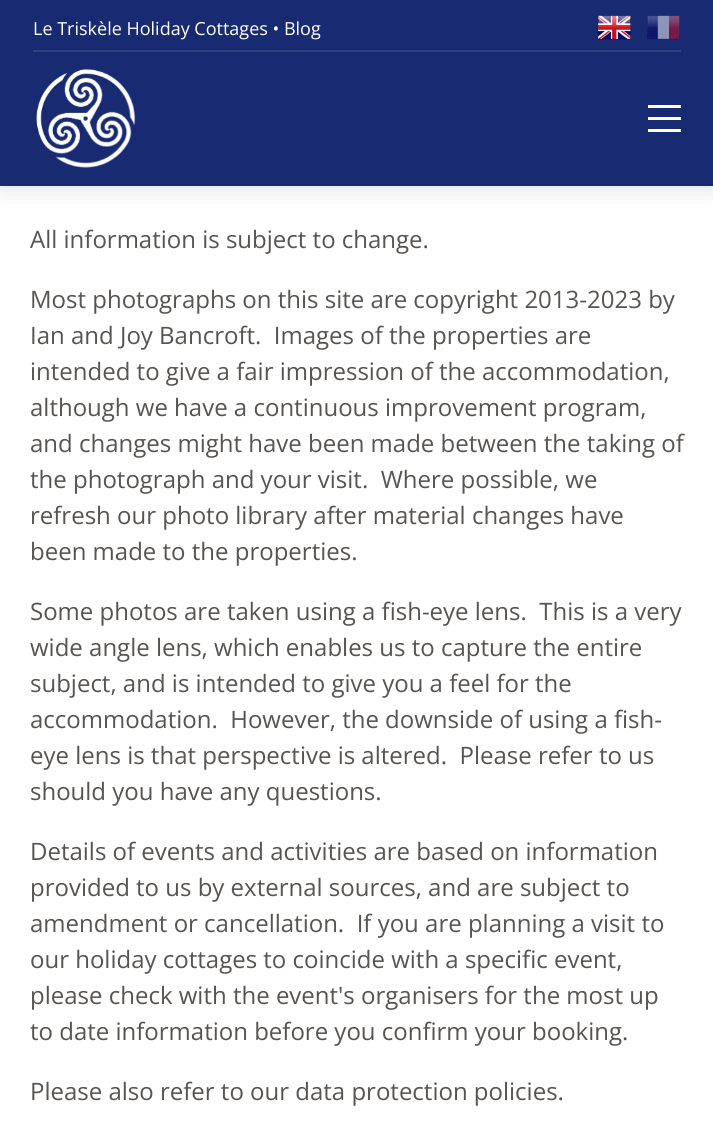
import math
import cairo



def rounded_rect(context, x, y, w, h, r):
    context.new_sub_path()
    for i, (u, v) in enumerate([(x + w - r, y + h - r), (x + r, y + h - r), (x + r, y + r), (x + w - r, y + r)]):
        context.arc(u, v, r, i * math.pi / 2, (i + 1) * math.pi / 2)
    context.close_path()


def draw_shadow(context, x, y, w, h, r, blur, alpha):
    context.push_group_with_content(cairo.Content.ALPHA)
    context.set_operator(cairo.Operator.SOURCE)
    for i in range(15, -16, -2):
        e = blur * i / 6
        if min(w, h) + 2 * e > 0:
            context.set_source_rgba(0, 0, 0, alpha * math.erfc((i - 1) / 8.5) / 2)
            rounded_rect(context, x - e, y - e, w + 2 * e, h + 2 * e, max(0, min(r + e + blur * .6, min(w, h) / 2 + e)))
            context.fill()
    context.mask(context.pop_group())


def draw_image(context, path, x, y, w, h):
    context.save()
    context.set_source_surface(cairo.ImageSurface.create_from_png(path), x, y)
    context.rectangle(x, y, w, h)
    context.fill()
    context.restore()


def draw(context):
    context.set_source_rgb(1, 1, 1)
    context.paint()
    context.set_source_rgb(0, 0, 0)
    draw_shadow(context, 0, 0, 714, 186, 0, 12, 0.15)
    context.set_source_rgb(24 / 255, 43 / 255, 114 / 255)
    context.rectangle(0, 0, 713, 186)
    context.fill()
    context.set_source_rgb(47 / 255, 64 / 255, 128 / 255)
    context.rectangle(33, 50, 648, 2)
    context.fill()
    draw_image(context, "images/1.png", 597, 15, 34, 25)
    draw_image(context, "images/2.png", 646, 15, 34, 25)
    draw_image(context, "images/3.png", 36, 69, 100, 99)
    context.set_source_rgb(1, 1, 1)
    context.rectangle(648, 105, 33, 3)
    context.fill()
    context.rectangle(648, 117, 33, 3)
    context.fill()
    context.rectangle(648, 129, 33, 3)
    context.fill()
    context.select_font_face("Open Sans")
    context.set_font_size(18)
    context.move_to(33, 35)
    context.show_text("Le Triskèle Holiday Cottages • Blog")
    context.set_font_size(24)
    context.set_source_rgb(87 / 255, 84 / 255, 81 / 255)
    context.move_to(30, 248)
    context.show_text("All information is subject to change.")
    context.move_to(30, 308)
    context.show_text("Most photographs on this site are copyright 2013-2023 by")
    context.move_to(30, 344)
    context.show_text("Ian and Joy Bancroft.  Images of the properties are")
    context.move_to(30, 380)
    context.show_text("intended to give a fair impression of the accommodation,")
    context.move_to(30, 416)
    context.show_text("although we have a continuous improvement program,")
    context.move_to(30, 452)
    context.show_text("and changes might have been made between the taking of")
    context.move_to(30, 488)
    context.show_text("the photograph and your visit.  Where possible, we")
    context.move_to(30, 524)
    context.show_text("refresh our photo library after material changes have")
    context.move_to(30, 560)
    context.show_text("been made to the properties.")
    context.move_to(30, 620)
    context.show_text("Some photos are taken using a fish-eye lens.  This is a very")
    context.move_to(30, 656)
    context.show_text("wide angle lens, which enables us to capture the entire")
    context.move_to(30, 692)
    context.show_text("subject, and is intended to give you a feel for the")
    context.move_to(30, 728)
    context.show_text("accommodation.  However, the downside of using a fish-")
    context.move_to(30, 764)
    context.show_text("eye lens is that perspective is altered.  Please refer to us")
    context.move_to(30, 800)
    context.show_text("should you have any questions.")
    context.move_to(30, 860)
    context.show_text("Details of events and activities are based on information")
    context.move_to(30, 896)
    context.show_text("provided to us by external sources, and are subject to")
    context.move_to(30, 932)
    context.show_text("amendment or cancellation.  If you are planning a visit to")
    context.move_to(30, 968)
    context.show_text("our holiday cottages to coincide with a specific event,")
    context.move_to(30, 1004)
    context.show_text("please check with the event's organisers for the most up")
    context.move_to(30, 1040)
    context.show_text("to date information before you confirm your booking.")
    context.move_to(30, 1100)
    context.show_text("Please also refer to our data protection policies.")


surface = cairo.ImageSurface(cairo.Format.RGB24, 713, 1146)
context = cairo.Context(surface)
options = cairo.FontOptions()
options.set_hint_metrics(cairo.HintMetrics.OFF)
options.set_hint_style(cairo.HintStyle.NONE)
context.set_font_options(options)
context.set_miter_limit(4)
draw(context)
surface.write_to_png("out.png")
